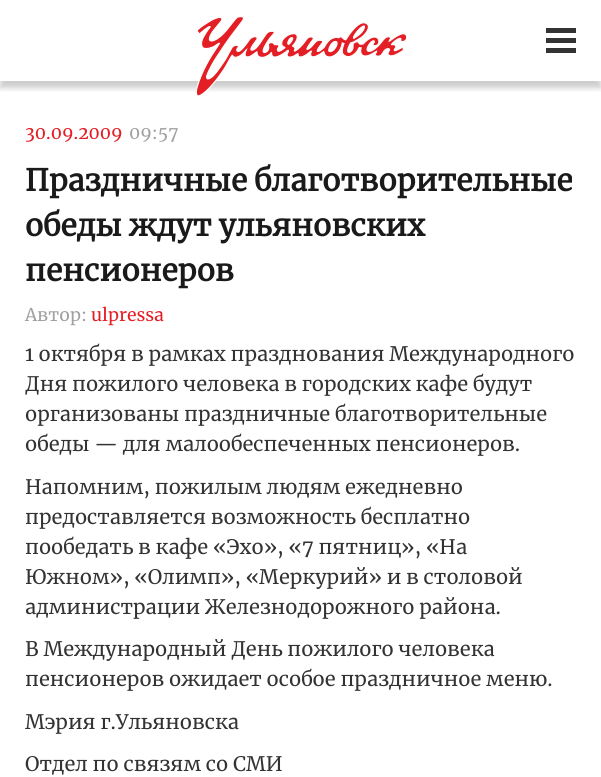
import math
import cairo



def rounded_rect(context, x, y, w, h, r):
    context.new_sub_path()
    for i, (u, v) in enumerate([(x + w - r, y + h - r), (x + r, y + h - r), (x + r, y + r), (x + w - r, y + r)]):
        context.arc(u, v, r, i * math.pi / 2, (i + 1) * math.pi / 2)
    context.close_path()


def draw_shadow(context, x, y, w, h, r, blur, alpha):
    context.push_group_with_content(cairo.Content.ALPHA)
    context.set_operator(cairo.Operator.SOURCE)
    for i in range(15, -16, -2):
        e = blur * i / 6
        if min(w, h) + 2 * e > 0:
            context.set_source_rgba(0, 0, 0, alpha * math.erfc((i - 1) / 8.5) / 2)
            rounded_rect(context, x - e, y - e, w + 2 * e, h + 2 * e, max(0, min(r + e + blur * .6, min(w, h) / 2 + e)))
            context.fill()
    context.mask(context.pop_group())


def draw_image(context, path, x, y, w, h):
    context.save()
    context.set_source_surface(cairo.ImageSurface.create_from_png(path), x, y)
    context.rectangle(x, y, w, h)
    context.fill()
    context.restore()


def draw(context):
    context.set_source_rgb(1, 1, 1)
    context.paint()
    context.save()
    context.rectangle(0, 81, 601, 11)
    context.clip()
    context.set_source_rgb(0, 0, 0)
    draw_shadow(context, 0, 6, 601, 82, 0, 3, 0.2)
    context.restore()
    draw_image(context, "images/1.png", 196, 16, 211, 80)
    context.set_source_rgb(51 / 255, 51 / 255, 51 / 255)
    context.rectangle(546, 28, 30, 5)
    context.fill()
    context.rectangle(546, 38, 30, 5)
    context.fill()
    context.rectangle(546, 48, 30, 5)
    context.fill()
    context.select_font_face("Merriweather")
    context.set_font_size(17.5)
    context.set_source_rgb(227 / 255, 30 / 255, 36 / 255)
    context.move_to(25, 139)
    context.show_text("30.09.2009")
    context.set_source_rgb(161 / 255, 161 / 255, 161 / 255)
    context.move_to(129, 139)
    context.show_text("09:57")
    context.select_font_face("Merriweather", cairo.FontSlant.NORMAL, cairo.FontWeight.BOLD)
    context.set_font_size(30)
    context.set_source_rgb(26 / 255, 26 / 255, 26 / 255)
    context.move_to(25, 191)
    context.show_text("Праздничные благотворительные")
    context.move_to(25, 236)
    context.show_text("обеды ждут ульяновских")
    context.move_to(25, 281)
    context.show_text("пенсионеров")
    context.select_font_face("Merriweather")
    context.set_font_size(17.5)
    context.set_source_rgb(161 / 255, 161 / 255, 161 / 255)
    context.move_to(25, 321)
    context.show_text("Автор:")
    context.set_source_rgb(227 / 255, 30 / 255, 36 / 255)
    context.move_to(91, 321)
    context.show_text("ulpressa")
    context.set_font_size(20)
    context.set_source_rgb(51 / 255, 51 / 255, 51 / 255)
    context.move_to(25, 361)
    context.show_text("1 октября в рамках празднования Международного")
    context.move_to(25, 391)
    context.show_text("Дня пожилого человека в городских кафе будут")
    context.move_to(25, 421)
    context.show_text("организованы праздничные благотворительные")
    context.move_to(25, 451)
    context.show_text("обеды — для малообеспеченных пенсионеров.")
    context.move_to(25, 494)
    context.show_text("Напомним, пожилым людям ежедневно")
    context.move_to(25, 524)
    context.show_text("предоставляется возможность бесплатно")
    context.move_to(25, 554)
    context.show_text("пообедать в кафе «Эхо», «7 пятниц», «На")
    context.move_to(25, 584)
    context.show_text("Южном», «Олимп», «Меркурий» и в столовой")
    context.move_to(25, 614)
    context.show_text("администрации Железнодорожного района.")
    context.move_to(25, 656)
    context.show_text("В Международный День пожилого человека")
    context.move_to(25, 686)
    context.show_text("пенсионеров ожидает особое праздничное меню.")
    context.move_to(25, 729)
    context.show_text("Мэрия г.Ульяновска")
    context.move_to(25, 771)
    context.show_text("Отдел по связям со СМИ")


surface = cairo.ImageSurface(cairo.Format.RGB24, 601, 777)
context = cairo.Context(surface)
options = cairo.FontOptions()
options.set_hint_metrics(cairo.HintMetrics.OFF)
options.set_hint_style(cairo.HintStyle.NONE)
context.set_font_options(options)
context.set_miter_limit(4)
draw(context)
surface.write_to_png("out.png")
